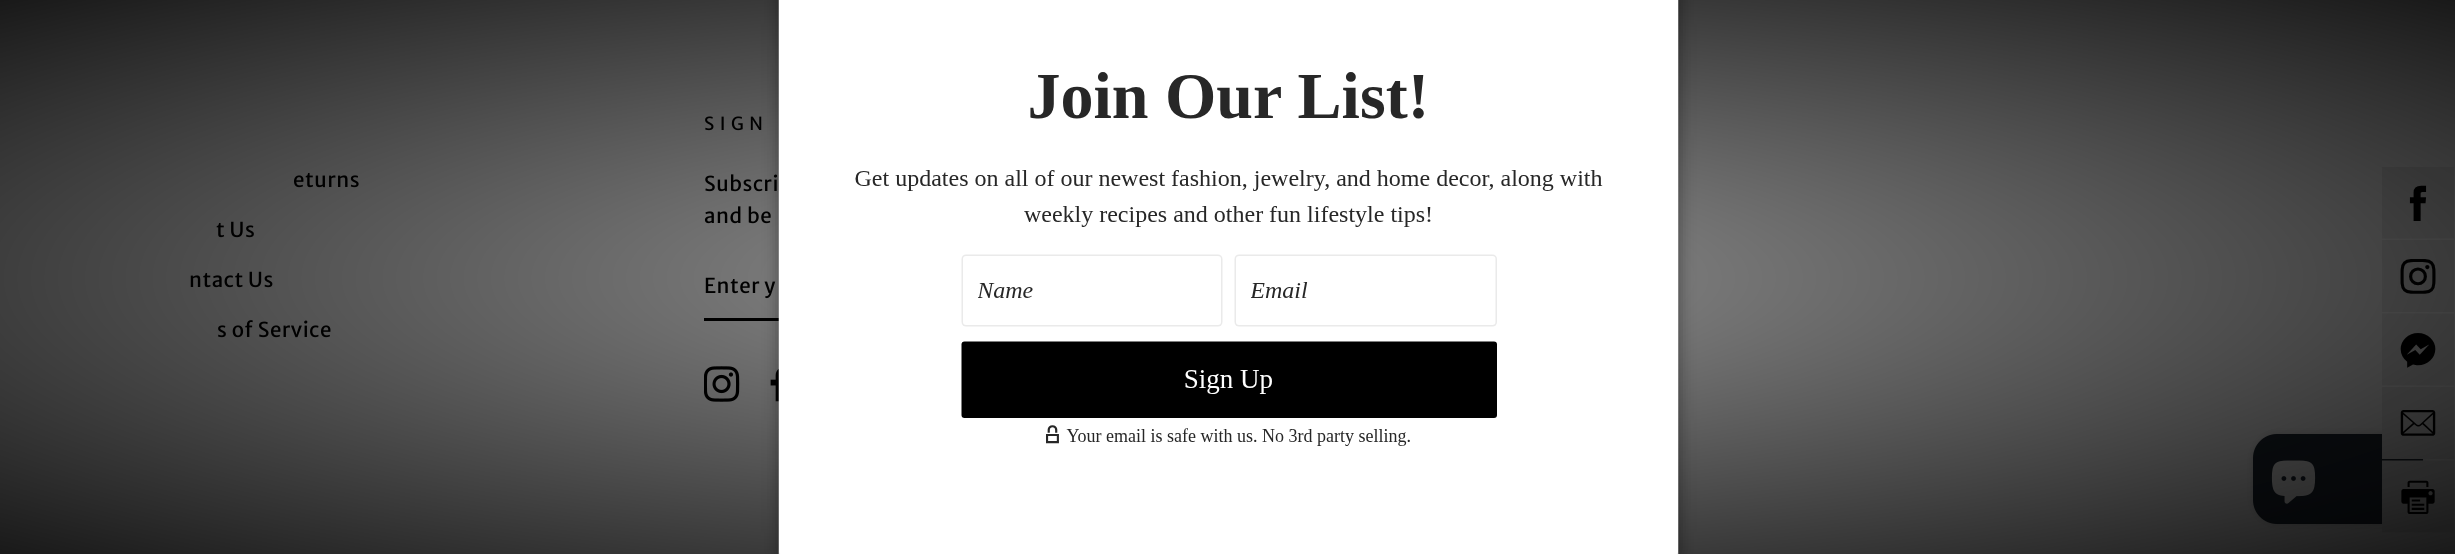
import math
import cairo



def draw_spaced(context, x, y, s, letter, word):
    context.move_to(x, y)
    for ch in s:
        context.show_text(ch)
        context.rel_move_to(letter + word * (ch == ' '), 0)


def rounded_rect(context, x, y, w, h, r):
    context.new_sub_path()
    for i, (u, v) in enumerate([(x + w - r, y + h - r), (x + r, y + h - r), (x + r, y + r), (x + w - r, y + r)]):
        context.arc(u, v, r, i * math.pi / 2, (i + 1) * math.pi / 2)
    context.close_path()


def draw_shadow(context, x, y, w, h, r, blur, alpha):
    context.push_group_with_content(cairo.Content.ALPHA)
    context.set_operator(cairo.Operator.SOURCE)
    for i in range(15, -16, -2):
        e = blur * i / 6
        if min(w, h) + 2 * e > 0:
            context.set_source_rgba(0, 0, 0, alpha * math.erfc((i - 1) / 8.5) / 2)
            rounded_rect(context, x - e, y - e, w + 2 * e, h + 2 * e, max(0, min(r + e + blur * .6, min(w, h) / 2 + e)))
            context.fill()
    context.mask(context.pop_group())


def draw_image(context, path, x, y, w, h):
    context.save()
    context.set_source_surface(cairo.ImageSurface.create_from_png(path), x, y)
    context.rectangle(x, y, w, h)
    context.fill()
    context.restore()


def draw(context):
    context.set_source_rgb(1, 1, 1)
    context.paint()
    context.set_source_rgb(0, 0, 0)
    context.rectangle(704, 318, 75, 3)
    context.fill()
    draw_image(context, "images/2.png", 704, 366, 36, 36)
    draw_image(context, "images/3.png", 770, 368, 9, 34)
    context.set_source_rgb(0, 0, 0)
    draw_shadow(context, 2253, 434, 170, 90, 24, 4, 0.15)
    context.set_source_rgb(32 / 255, 42 / 255, 54 / 255)
    rounded_rect(context, 2253, 434, 170, 90, 24)
    context.fill()
    draw_image(context, "images/4.png", 2382, 167, 72, 366)
    draw_image(context, "images/5.png", 2271, 460, 45, 44)
    context.select_font_face("Merriweather Sans")
    context.set_font_size(20.5)
    context.set_source_rgb(0, 0, 0)
    draw_spaced(context, 293, 187, "eturns", 0.6, 0)
    draw_spaced(context, 216, 237, "t Us", 0.6, 0)
    draw_spaced(context, 189, 287, "ntact Us", 0.6, 0)
    draw_spaced(context, 217, 337, "s of Service", 0.6, 0)
    context.set_font_size(18)
    draw_spaced(context, 704, 130, "SIGN", 5.5, 0)
    context.set_font_size(20.5)
    draw_spaced(context, 704, 191, "Subscri", 0.6, 0)
    draw_spaced(context, 704, 223, "and be", 0.6, 0)
    draw_spaced(context, 704, 293, "Enter y", 0.5, 0)
    gradient = cairo.RadialGradient(0, 0, 0, 0, 0, 1)
    gradient.set_matrix(cairo.Matrix(1 / 1736, 0, 0, 1 / 392, -1 * 1228 / 1736, -1 * 278 / 392))
    gradient.add_color_stop_rgba(0, 0, 0, 0, 0.4)
    gradient.add_color_stop_rgba(1, 0, 0, 0, 0.9)
    context.set_source(gradient)
    context.rectangle(0, 0, 2455, 554)
    context.fill()
    context.set_source_rgb(0, 0, 0)
    draw_shadow(context, 779, -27, 900, 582, 3, 8, 0.4)
    draw_image(context, "images/1.png", 778, 0, 901, 554)


surface = cairo.ImageSurface(cairo.Format.RGB24, 2455, 554)
context = cairo.Context(surface)
options = cairo.FontOptions()
options.set_hint_metrics(cairo.HintMetrics.OFF)
options.set_hint_style(cairo.HintStyle.NONE)
context.set_font_options(options)
context.set_miter_limit(4)
draw(context)
surface.write_to_png("out.png")
